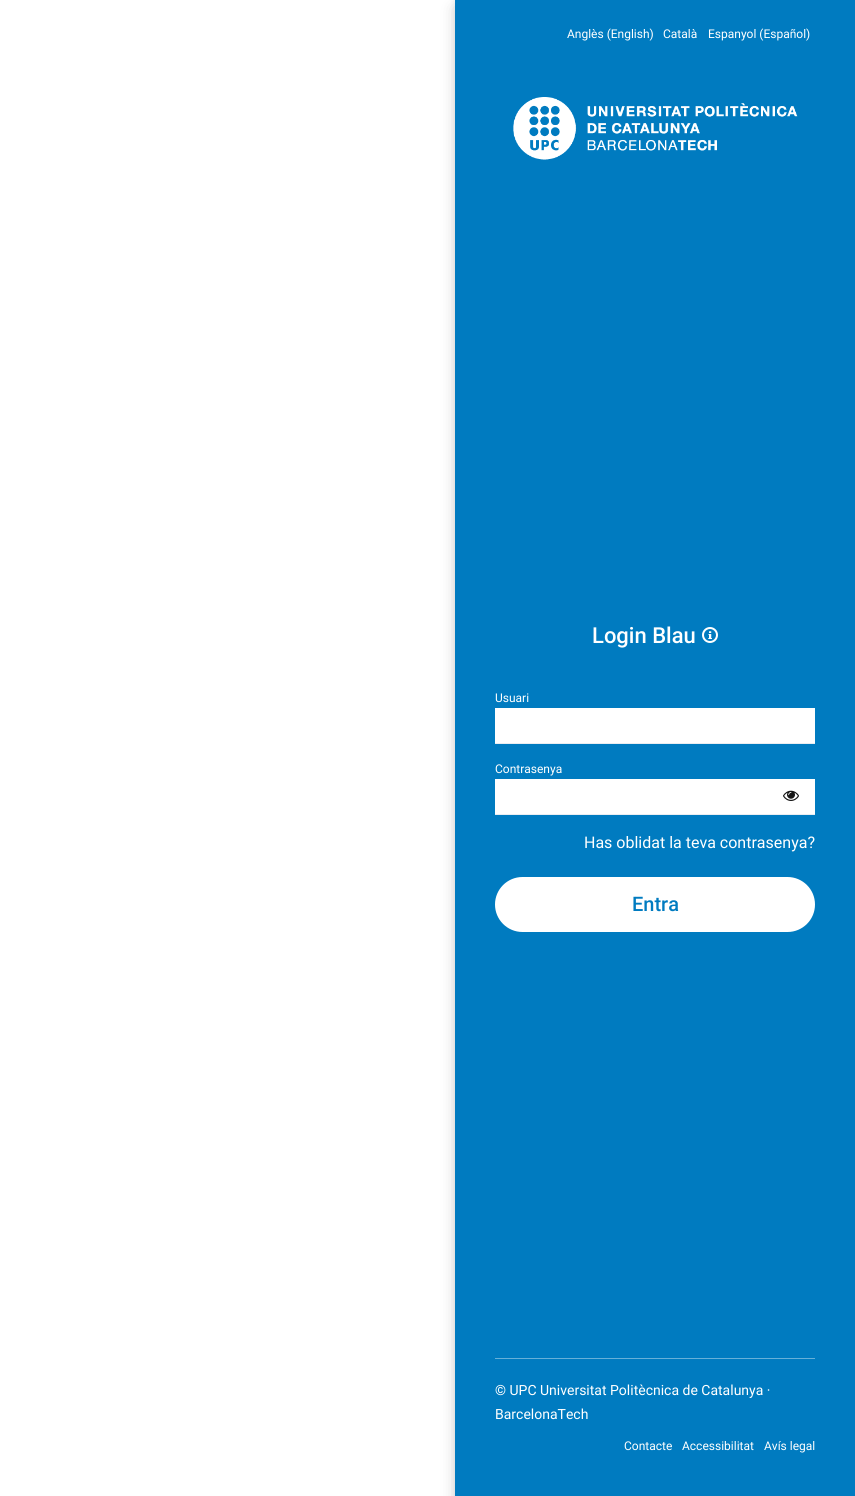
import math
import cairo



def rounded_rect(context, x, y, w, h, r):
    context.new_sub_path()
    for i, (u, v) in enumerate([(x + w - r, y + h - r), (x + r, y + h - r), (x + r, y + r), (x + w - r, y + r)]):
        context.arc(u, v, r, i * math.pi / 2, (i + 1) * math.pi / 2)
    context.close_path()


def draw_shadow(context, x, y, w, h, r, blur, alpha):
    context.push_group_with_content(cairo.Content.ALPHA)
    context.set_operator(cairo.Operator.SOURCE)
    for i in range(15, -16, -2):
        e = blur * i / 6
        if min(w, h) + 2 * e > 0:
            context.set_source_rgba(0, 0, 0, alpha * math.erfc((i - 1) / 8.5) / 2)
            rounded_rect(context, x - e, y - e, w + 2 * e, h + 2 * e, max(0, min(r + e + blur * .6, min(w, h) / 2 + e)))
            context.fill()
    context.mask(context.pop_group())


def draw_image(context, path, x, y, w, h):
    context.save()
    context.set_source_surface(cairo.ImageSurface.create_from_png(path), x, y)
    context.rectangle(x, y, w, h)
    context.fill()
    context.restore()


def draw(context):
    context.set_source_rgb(1, 1, 1)
    context.paint()
    context.set_source_rgb(3 / 255, 3 / 255, 3 / 255)
    draw_shadow(context, 455, 0, 400, 1496, 0, 3, 0.08)
    draw_shadow(context, 455, 8, 400, 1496, 0, 8, 0.16)
    context.set_source_rgb(0, 123 / 255, 192 / 255)
    context.rectangle(455, 0, 400, 1496)
    context.fill()
    draw_image(context, "images/1.png", 513, 97, 285, 63)
    draw_image(context, "images/2.png", 702, 627, 16, 16)
    context.set_source_rgb(1, 1, 1)
    context.rectangle(495, 708, 320, 35)
    context.fill()
    context.set_source_rgb(233 / 255, 237 / 255, 242 / 255)
    context.rectangle(495, 743, 320, 1)
    context.fill()
    context.set_source_rgb(1, 1, 1)
    context.rectangle(495, 779, 320, 35)
    context.fill()
    draw_image(context, "images/3.png", 783, 790, 16, 11)
    context.set_source_rgb(233 / 255, 237 / 255, 242 / 255)
    context.rectangle(495, 814, 320, 1)
    context.fill()
    context.set_source_rgb(1, 1, 1)
    rounded_rect(context, 495, 877, 320, 55, 27.5)
    context.fill()
    context.set_source_rgb(102 / 255, 176 / 255, 217 / 255)
    context.rectangle(495, 1358, 320, 1)
    context.fill()
    context.select_font_face("Roboto")
    context.set_font_size(12)
    context.set_source_rgb(1, 1, 1)
    context.move_to(567, 38)
    context.show_text("Anglès (English)")
    context.move_to(663, 38)
    context.show_text("Català")
    context.move_to(708, 38)
    context.show_text("Espanyol (Español)")
    context.select_font_face("Roboto Medium")
    context.set_font_size(22)
    context.move_to(592, 643)
    context.show_text("Login Blau")
    context.select_font_face("Roboto")
    context.set_font_size(12)
    context.move_to(495, 702)
    context.show_text("Usuari")
    context.move_to(495, 773)
    context.show_text("Contrasenya")
    context.set_font_size(16)
    context.move_to(584, 848)
    context.show_text("Has oblidat la teva contrasenya?")
    context.select_font_face("Roboto Medium")
    context.set_font_size(20)
    context.set_source_rgb(0, 123 / 255, 192 / 255)
    context.move_to(632, 911)
    context.show_text("Entra")
    context.select_font_face("Roboto")
    context.set_font_size(14)
    context.set_source_rgb(1, 1, 1)
    context.move_to(495, 1395)
    context.show_text("© UPC Universitat Politècnica de Catalunya ·")
    context.move_to(495, 1419)
    context.show_text("BarcelonaTech")
    context.set_font_size(12)
    context.move_to(624, 1450)
    context.show_text("Contacte")
    context.move_to(682, 1450)
    context.show_text("Accessibilitat")
    context.move_to(764, 1450)
    context.show_text("Avís legal")


surface = cairo.ImageSurface(cairo.Format.RGB24, 855, 1496)
context = cairo.Context(surface)
options = cairo.FontOptions()
options.set_hint_metrics(cairo.HintMetrics.OFF)
options.set_hint_style(cairo.HintStyle.NONE)
context.set_font_options(options)
context.set_miter_limit(4)
draw(context)
surface.write_to_png("out.png")
